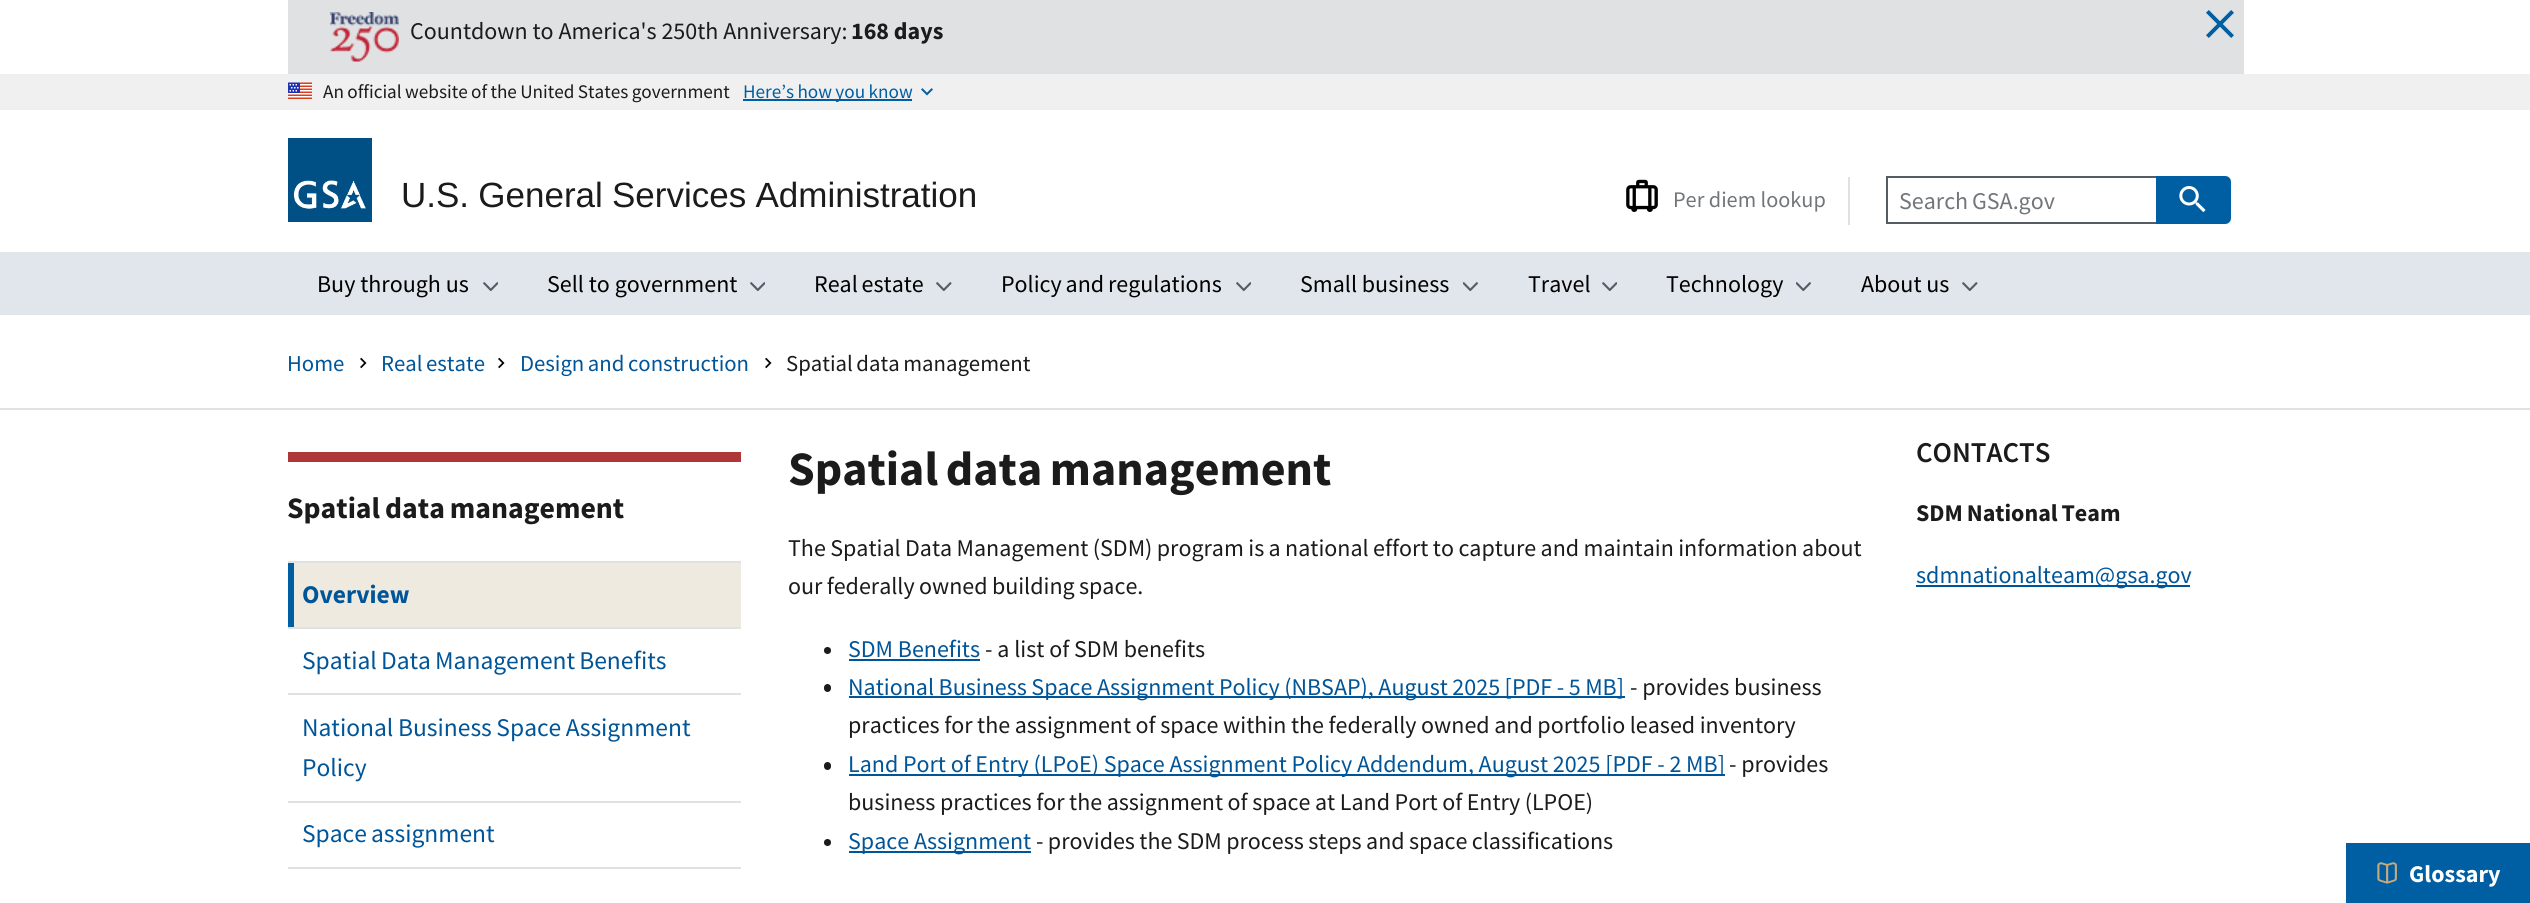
import math
import cairo



def draw_spaced(context, x, y, s, letter, word):
    context.move_to(x, y)
    for ch in s:
        context.show_text(ch)
        context.rel_move_to(letter + word * (ch == ' '), 0)


def rounded_rect(context, x, y, w, h, r):
    context.new_sub_path()
    for i, (u, v) in enumerate([(x + w - r, y + h - r), (x + r, y + h - r), (x + r, y + r), (x + w - r, y + r)]):
        context.arc(u, v, r, i * math.pi / 2, (i + 1) * math.pi / 2)
    context.close_path()


def draw_image(context, path, x, y, w, h):
    context.save()
    context.set_source_surface(cairo.ImageSurface.create_from_png(path), x, y)
    context.rectangle(x, y, w, h)
    context.fill()
    context.restore()


def draw(context):
    context.set_source_rgb(1, 1, 1)
    context.paint()
    context.set_source_rgb(223 / 255, 225 / 255, 226 / 255)
    context.rectangle(288, 0, 1956, 74)
    context.fill()
    draw_image(context, "images/1.png", 330, 12, 69, 50)
    draw_image(context, "images/2.png", 2206, 10, 28, 28)
    context.set_source_rgb(240 / 255, 240 / 255, 240 / 255)
    context.rectangle(0, 74, 2530, 36)
    context.fill()
    draw_image(context, "images/3.png", 288, 82, 24, 17)
    context.set_source_rgb(0, 94 / 255, 162 / 255)
    context.rectangle(743, 99, 169, 2)
    context.fill()
    draw_image(context, "images/4.png", 921, 88, 12, 8)
    draw_image(context, "images/5.png", 288, 138, 84, 84)
    context.set_source_rgb(224 / 255, 230 / 255, 235 / 255)
    context.rectangle(0, 252, 2530, 63)
    context.fill()
    context.set_source_rgb(223 / 255, 225 / 255, 226 / 255)
    context.rectangle(1848, 177, 2, 48)
    context.fill()
    draw_image(context, "images/6.png", 1626, 179, 32, 33)
    context.set_source_rgb(86 / 255, 92 / 255, 101 / 255)
    context.rectangle(1886, 176, 270, 2)
    context.fill()
    context.rectangle(1886, 222, 270, 2)
    context.fill()
    context.rectangle(1886, 176, 2, 48)
    context.fill()
    context.set_source_rgb(0, 94 / 255, 162 / 255)
    context.new_path()
    context.move_to(2156, 176)
    context.line_to(2225, 176)
    context.curve_to(2228.5, 176, 2231, 178.5, 2231, 182)
    context.line_to(2231, 218)
    context.curve_to(2231, 221.5, 2228.5, 224, 2225, 224)
    context.line_to(2156, 224)
    context.close_path()
    context.fill()
    draw_image(context, "images/7.png", 2179, 186, 27, 27)
    draw_image(context, "images/8.png", 483, 282, 15, 9)
    draw_image(context, "images/8.png", 750, 282, 15, 9)
    draw_image(context, "images/9.png", 936, 282, 16, 9)
    draw_image(context, "images/8.png", 1236, 282, 15, 9)
    draw_image(context, "images/10.png", 1463, 282, 15, 9)
    draw_image(context, "images/8.png", 1602, 282, 15, 9)
    draw_image(context, "images/10.png", 1796, 282, 15, 9)
    draw_image(context, "images/9.png", 1962, 282, 16, 9)
    draw_image(context, "images/11.png", 360, 357, 7, 12)
    draw_image(context, "images/11.png", 498, 357, 7, 12)
    draw_image(context, "images/11.png", 765, 357, 7, 12)
    context.set_source_rgb(223 / 255, 225 / 255, 226 / 255)
    context.rectangle(0, 408, 2530, 2)
    context.fill()
    context.rectangle(288, 867, 453, 2)
    context.fill()
    context.set_source_rgb(175 / 255, 54 / 255, 57 / 255)
    context.rectangle(288, 452, 453, 10)
    context.fill()
    context.set_source_rgb(223 / 255, 225 / 255, 226 / 255)
    context.rectangle(288, 561, 453, 2)
    context.fill()
    context.set_source_rgb(239 / 255, 234 / 255, 223 / 255)
    context.rectangle(294, 563, 447, 64)
    context.fill()
    context.set_source_rgb(0, 94 / 255, 162 / 255)
    context.rectangle(288, 563, 6, 64)
    context.fill()
    context.set_source_rgb(223 / 255, 225 / 255, 226 / 255)
    context.rectangle(288, 627, 453, 2)
    context.fill()
    context.rectangle(288, 693, 453, 2)
    context.fill()
    context.rectangle(288, 801, 453, 2)
    context.fill()
    context.set_source_rgb(27 / 255, 27 / 255, 27 / 255)
    context.arc(827.5, 650.5, 3.5, 0, 2 * math.pi)
    context.fill()
    context.set_source_rgb(0, 85 / 255, 153 / 255)
    context.rectangle(849, 659, 131, 2)
    context.fill()
    context.set_source_rgb(27 / 255, 27 / 255, 27 / 255)
    rounded_rect(context, 824, 684, 7, 8, 3.5)
    context.fill()
    context.set_source_rgb(0, 85 / 255, 153 / 255)
    context.rectangle(849, 696, 776, 2)
    context.fill()
    context.set_source_rgb(27 / 255, 27 / 255, 27 / 255)
    rounded_rect(context, 824, 762, 7, 8, 3.5)
    context.fill()
    context.set_source_rgb(0, 85 / 255, 153 / 255)
    context.rectangle(849, 774, 876, 2)
    context.fill()
    context.set_source_rgb(27 / 255, 27 / 255, 27 / 255)
    context.arc(827.5, 842.5, 3.5, 0, 2 * math.pi)
    context.fill()
    context.set_source_rgb(0, 85 / 255, 153 / 255)
    context.rectangle(849, 851, 182, 2)
    context.fill()
    context.rectangle(1916, 585, 274, 2)
    context.fill()
    context.set_source_rgb(0, 94 / 255, 162 / 255)
    context.rectangle(2346, 843, 184, 60)
    context.fill()
    draw_image(context, "images/12.png", 2377, 862, 20, 22)
    context.select_font_face("Source Sans Pro")
    context.set_font_size(24)
    context.set_source_rgb(27 / 255, 27 / 255, 27 / 255)
    context.move_to(410, 39)
    context.show_text("Countdown to America's 250th Anniversary:")
    context.select_font_face("Source Sans Pro", cairo.FontSlant.NORMAL, cairo.FontWeight.BOLD)
    context.move_to(851, 39)
    context.show_text("168 days")
    context.select_font_face("Source Sans Pro")
    context.set_font_size(19.2)
    draw_spaced(context, 323, 98, "An official website of the United States government", 0, -0.5)
    context.set_source_rgb(0, 94 / 255, 162 / 255)
    draw_spaced(context, 743, 98, "Here’s how you know", 0, -0.5)
    context.select_font_face("Liberation Sans")
    context.set_font_size(35)
    context.set_source_rgb(27 / 255, 27 / 255, 27 / 255)
    draw_spaced(context, 401, 207, "U.S. General Services Administration", 0, -0.5)
    context.select_font_face("Source Sans Pro")
    context.set_font_size(22.25)
    context.set_source_rgb(113 / 255, 118 / 255, 122 / 255)
    context.move_to(1673, 207)
    context.show_text("Per diem lookup")
    context.set_font_size(24)
    draw_spaced(context, 1899, 209, "Search GSA.gov", 0, -1)
    context.set_source_rgb(0, 0, 0)
    context.move_to(317, 292)
    context.show_text("Buy through us")
    context.move_to(547, 292)
    context.show_text("Sell to government")
    draw_spaced(context, 814, 292, "Real estate", 0, -1)
    draw_spaced(context, 1001, 292, "Policy and regulations", 0, -1)
    context.move_to(1300, 292)
    context.show_text("Small business")
    context.move_to(1528, 292)
    context.show_text("Travel")
    context.move_to(1666, 292)
    context.show_text("Technology")
    context.move_to(1861, 292)
    context.show_text("About us")
    context.set_font_size(22.75)
    context.set_source_rgb(0, 85 / 255, 153 / 255)
    context.move_to(287, 371)
    context.show_text("Home")
    draw_spaced(context, 381, 371, "Real estate", 0, -1)
    draw_spaced(context, 520, 371, "Design and construction", 0, -1)
    context.set_source_rgb(27 / 255, 27 / 255, 27 / 255)
    draw_spaced(context, 786, 371, "Spatial data management", 0, -1)
    context.select_font_face("Source Sans Pro", cairo.FontSlant.NORMAL, cairo.FontWeight.BOLD)
    context.set_font_size(29.75)
    draw_spaced(context, 287, 518, "Spatial data management", 0, -1)
    context.set_font_size(25.5)
    context.set_source_rgb(0, 85 / 255, 153 / 255)
    context.move_to(302, 603)
    context.show_text("Overview")
    context.select_font_face("Source Sans Pro")
    draw_spaced(context, 302, 669, "Spatial Data Management Benefits", 0, -1)
    draw_spaced(context, 302, 736, "National Business Space Assignment", 0, -0.5)
    context.move_to(302, 776)
    context.show_text("Policy")
    draw_spaced(context, 302, 842, "Space assignment", 0, -1)
    context.select_font_face("Source Sans Pro", cairo.FontSlant.NORMAL, cairo.FontWeight.BOLD)
    context.set_font_size(48)
    context.set_source_rgb(27 / 255, 27 / 255, 27 / 255)
    draw_spaced(context, 788, 485, "Spatial data management", 0, -2)
    context.select_font_face("Source Sans Pro")
    context.set_font_size(24)
    draw_spaced(context, 788, 556, "The Spatial Data Management (SDM) program is a national effort to capture and maintain information about", 0, -0.4)
    draw_spaced(context, 788, 594, "our federally owned building space.", 0, -0.5)
    context.set_source_rgb(0, 85 / 255, 153 / 255)
    context.move_to(848, 657)
    context.show_text("SDM Benefits")
    context.set_source_rgb(27 / 255, 27 / 255, 27 / 255)
    context.move_to(985, 657)
    context.show_text("- a list of SDM benefits")
    context.set_source_rgb(0, 85 / 255, 153 / 255)
    draw_spaced(context, 848, 695, "National Business Space Assignment Policy (NBSAP), August 2025 [PDF - 5 MB]", 0, -0.25)
    context.set_source_rgb(27 / 255, 27 / 255, 27 / 255)
    context.move_to(1630, 695)
    context.show_text("- provides business")
    draw_spaced(context, 848, 733, "practices for the assignment of space within the federally owned and portfolio leased inventory", 0, -0.25)
    context.set_source_rgb(0, 85 / 255, 153 / 255)
    draw_spaced(context, 848, 772, "Land Port of Entry (LPoE) Space Assignment Policy Addendum, August 2025 [PDF - 2 MB]", 0, -0.1)
    context.set_source_rgb(27 / 255, 27 / 255, 27 / 255)
    context.move_to(1729, 772)
    context.show_text("- provides")
    draw_spaced(context, 848, 810, "business practices for the assignment of space at Land Port of Entry (LPOE)", 0, -0.25)
    context.set_source_rgb(0, 85 / 255, 153 / 255)
    context.move_to(848, 849)
    context.show_text("Space Assignment")
    context.set_source_rgb(27 / 255, 27 / 255, 27 / 255)
    draw_spaced(context, 1036, 849, "- provides the SDM process steps and space classifications", 0, -0.4)
    context.select_font_face("Source Sans Pro SemiBold")
    context.set_font_size(28.75)
    context.move_to(1916, 462)
    context.show_text("CONTACTS")
    context.select_font_face("Source Sans Pro", cairo.FontSlant.NORMAL, cairo.FontWeight.BOLD)
    context.set_font_size(24)
    draw_spaced(context, 1916, 521, "SDM National Team", 0, -1)
    context.select_font_face("Source Sans Pro")
    context.set_source_rgb(0, 85 / 255, 153 / 255)
    context.move_to(1916, 583)
    context.show_text("sdmnationalteam@gsa.gov")
    context.select_font_face("Source Sans Pro", cairo.FontSlant.NORMAL, cairo.FontWeight.BOLD)
    context.set_source_rgb(1, 1, 1)
    context.move_to(2409, 882)
    context.show_text("Glossary")


surface = cairo.ImageSurface(cairo.Format.RGB24, 2530, 903)
context = cairo.Context(surface)
options = cairo.FontOptions()
options.set_hint_metrics(cairo.HintMetrics.OFF)
options.set_hint_style(cairo.HintStyle.NONE)
context.set_font_options(options)
context.set_miter_limit(4)
draw(context)
surface.write_to_png("out.png")
